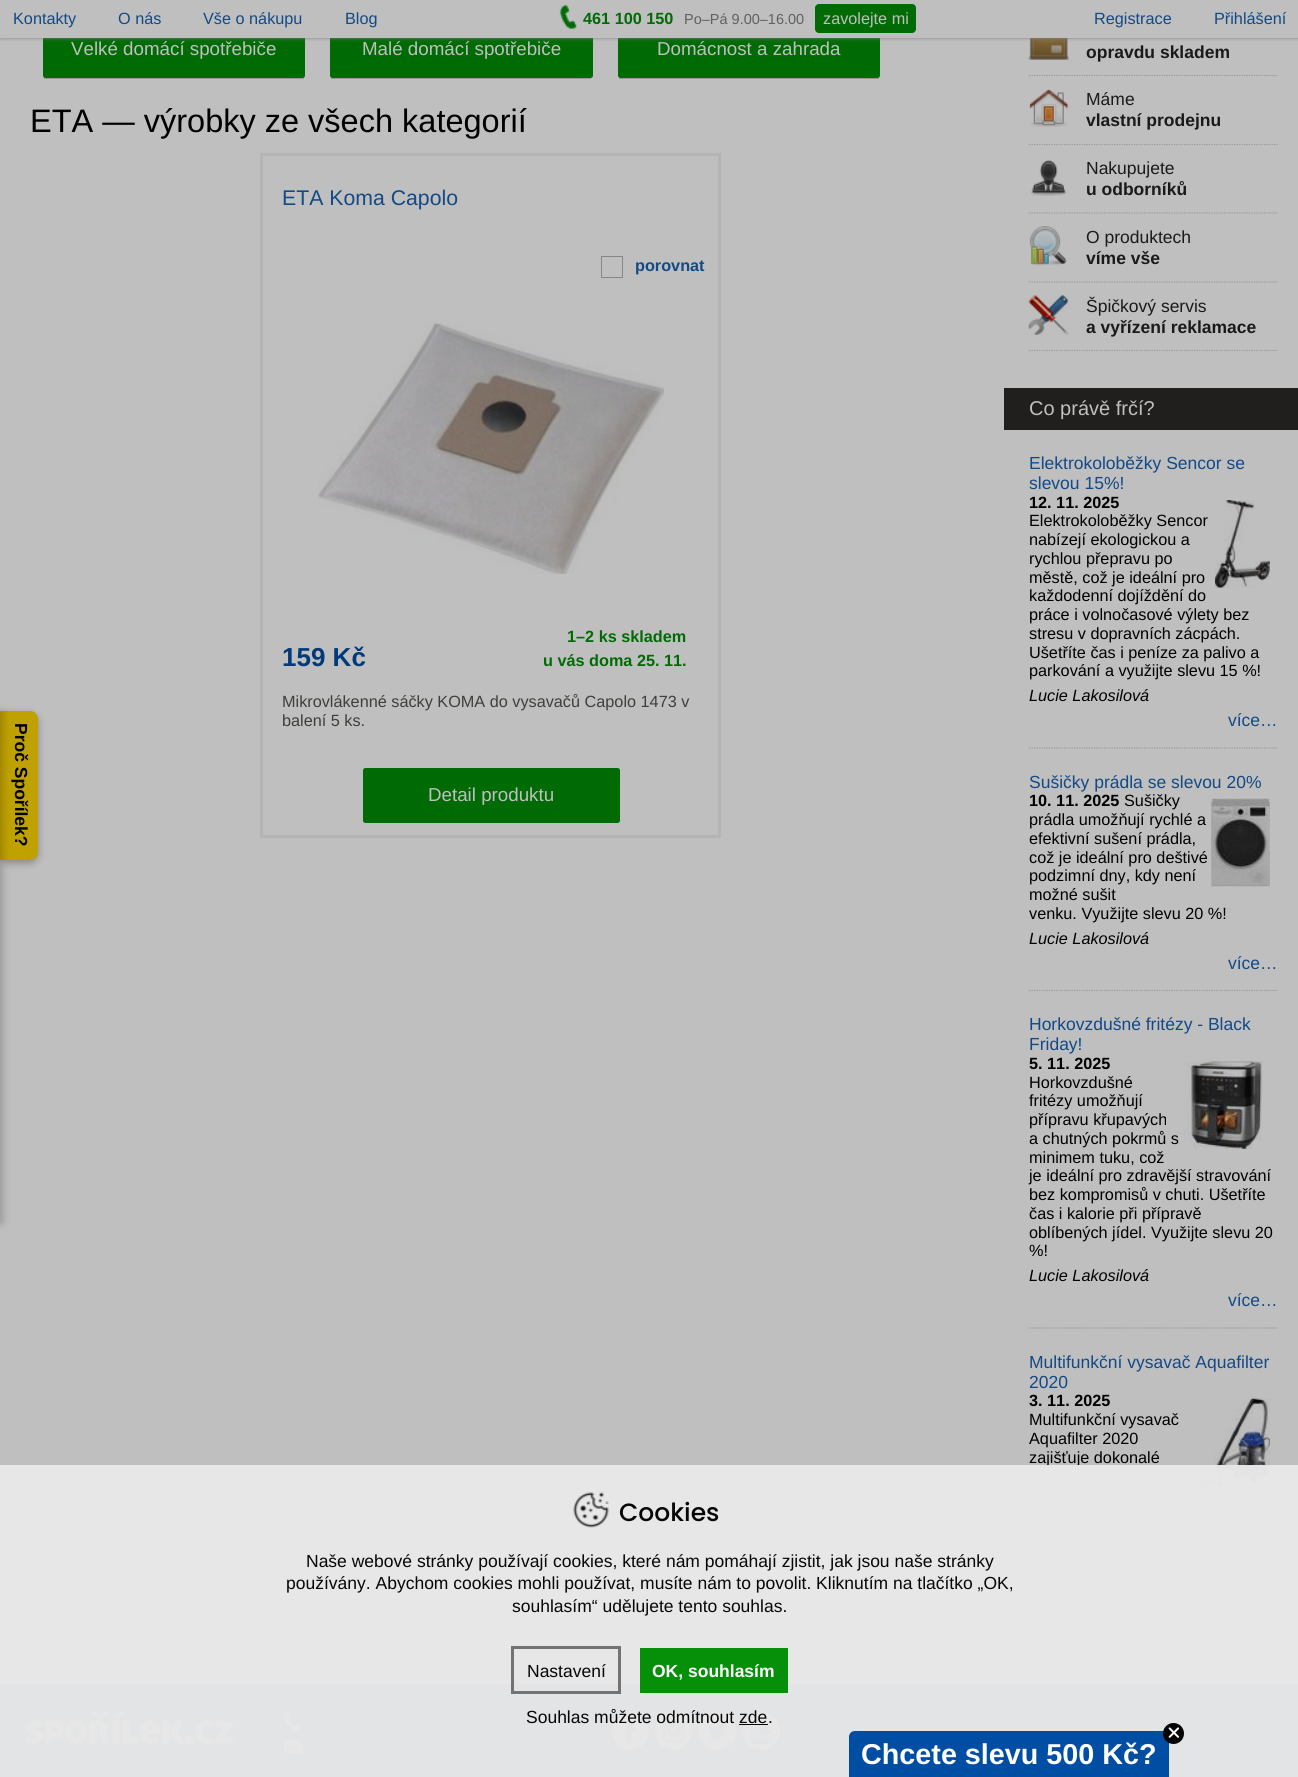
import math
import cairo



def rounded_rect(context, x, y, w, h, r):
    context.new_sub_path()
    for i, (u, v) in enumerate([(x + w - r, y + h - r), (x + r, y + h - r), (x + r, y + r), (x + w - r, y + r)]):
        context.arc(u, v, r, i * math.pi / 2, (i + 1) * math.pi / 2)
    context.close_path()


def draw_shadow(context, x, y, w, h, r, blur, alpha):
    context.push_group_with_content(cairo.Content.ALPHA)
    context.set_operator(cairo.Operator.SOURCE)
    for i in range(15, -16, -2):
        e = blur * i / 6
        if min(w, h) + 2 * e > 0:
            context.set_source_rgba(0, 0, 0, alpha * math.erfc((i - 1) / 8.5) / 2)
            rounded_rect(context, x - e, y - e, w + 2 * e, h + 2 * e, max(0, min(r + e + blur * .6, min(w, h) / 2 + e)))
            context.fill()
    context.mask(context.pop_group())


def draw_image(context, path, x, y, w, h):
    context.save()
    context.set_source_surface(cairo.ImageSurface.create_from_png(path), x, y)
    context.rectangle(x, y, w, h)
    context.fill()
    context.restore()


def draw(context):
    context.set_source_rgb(0, 58 / 255, 123 / 255)
    context.paint()
    context.set_source_rgb(191 / 255, 191 / 255, 191 / 255)
    context.rectangle(0, 38, 1298, 1646)
    context.fill()
    context.set_source_rgb(0, 107 / 255, 4 / 255)
    rounded_rect(context, 43, 21, 262, 57, 2.5)
    context.fill()
    rounded_rect(context, 330, 21, 263, 57, 2.5)
    context.fill()
    rounded_rect(context, 618, 21, 262, 57, 2.5)
    context.fill()
    draw_image(context, "images/3.png", 1028, 38, 41, 22)
    context.set_source_rgb(128 / 255, 128 / 255, 128 / 255)
    draw_shadow(context, 0, 0, 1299, 38, 0, 2, 1)
    context.set_source_rgb(191 / 255, 191 / 255, 191 / 255)
    context.rectangle(0, 0, 1298, 38)
    context.fill()
    draw_image(context, "images/1.png", 559, 5, 18, 24)
    context.set_source_rgb(0, 107 / 255, 4 / 255)
    rounded_rect(context, 815, 4, 101, 29, 4)
    context.fill()
    context.set_source_rgb(0, 0, 0)
    draw_shadow(context, 0, 714, 38, 149, 8, 4, 0.3)
    context.set_source_rgb(191 / 255, 161 / 255, 0)
    context.new_path()
    context.move_to(0, 711)
    context.line_to(30, 711)
    context.curve_to(34.5, 711, 38, 714.5, 38, 719)
    context.line_to(38, 852)
    context.curve_to(38, 856.5, 34.5, 860, 30, 860)
    context.line_to(0, 860)
    context.close_path()
    context.fill()
    context.set_source_rgb(0, 0, 0)
    draw_shadow(context, -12, 711, 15, 512, 0, 4, 0.2)
    context.set_source_rgb(152 / 255, 152 / 255, 152 / 255)
    context.rectangle(44, 78, 260, 1)
    context.fill()
    context.rectangle(331, 78, 260, 1)
    context.fill()
    context.rectangle(619, 78, 260, 1)
    context.fill()
    context.rectangle(261.5, 154.5, 458, 682)
    context.set_source_rgb(180 / 255, 180 / 255, 180 / 255)
    context.set_line_width(3)
    context.stroke()
    context.rectangle(601.5, 256.5, 21, 21)
    context.set_source_rgb(134 / 255, 134 / 255, 134 / 255)
    context.set_line_width(1)
    context.stroke()
    draw_image(context, "images/2.png", 318, 323, 346, 251)
    context.set_source_rgb(0, 107 / 255, 4 / 255)
    rounded_rect(context, 363, 768, 257, 55, 2.5)
    context.fill()
    context.new_path()
    context.move_to(1029, 75.5)
    context.line_to(1277.5, 75.5)
    context.set_source_rgb(153 / 255, 153 / 255, 153 / 255)
    context.set_line_width(1.2)
    context.set_dash([1.25, 1.25])
    context.stroke()
    context.new_path()
    context.move_to(1029, 144.5)
    context.line_to(1277.5, 144.5)
    context.stroke()
    draw_image(context, "images/4.png", 1029, 89, 39, 38)
    context.new_path()
    context.move_to(1029, 213)
    context.line_to(1277.5, 213)
    context.stroke()
    draw_image(context, "images/5.png", 1030, 160, 37, 36)
    context.new_path()
    context.move_to(1029, 282)
    context.line_to(1277.5, 282)
    context.stroke()
    draw_image(context, "images/6.png", 1029, 226, 38, 40)
    context.new_path()
    context.move_to(1029, 350.5)
    context.line_to(1277.5, 350.5)
    context.stroke()
    draw_image(context, "images/7.png", 1028, 295, 41, 40)
    context.set_source_rgb(32 / 255, 31 / 255, 29 / 255)
    context.rectangle(1004, 388, 294, 42)
    context.fill()
    context.new_path()
    context.move_to(1029, 748)
    context.line_to(1277.5, 748)
    context.set_source_rgb(153 / 255, 153 / 255, 153 / 255)
    context.stroke()
    draw_image(context, "images/8.png", 1215, 500, 55, 88)
    context.new_path()
    context.move_to(1029, 990.5)
    context.line_to(1277.5, 990.5)
    context.stroke()
    draw_image(context, "images/9.png", 1211, 798, 59, 89)
    context.new_path()
    context.move_to(1029, 1328)
    context.line_to(1277.5, 1328)
    context.stroke()
    draw_image(context, "images/10.png", 1183, 1061, 80, 88)
    context.new_path()
    context.move_to(1029, 1628)
    context.line_to(1277.5, 1628)
    context.stroke()
    draw_image(context, "images/11.png", 1203, 1398, 67, 89)
    draw_image(context, "images/13.png", 25, 1712, 209, 32)
    draw_image(context, "images/14.png", 283, 1712, 19, 20)
    draw_image(context, "images/15.png", 283, 1739, 20, 15)
    draw_image(context, "images/16.png", 611, 1712, 38, 38)
    draw_image(context, "images/17.png", 655, 1712, 38, 38)
    draw_image(context, "images/18.png", 698, 1712, 39, 38)
    draw_image(context, "images/19.png", 742, 1712, 38, 38)
    context.select_font_face("Liberation Sans")
    context.set_font_size(16.25)
    context.set_source_rgb(18 / 255, 73 / 255, 134 / 255)
    context.move_to(13, 24)
    context.show_text("Kontakty")
    context.move_to(118, 24)
    context.show_text("O nás")
    context.move_to(203, 24)
    context.show_text("Vše o nákupu")
    context.move_to(345, 24)
    context.show_text("Blog")
    context.select_font_face("Liberation Sans", cairo.FontSlant.NORMAL, cairo.FontWeight.BOLD)
    context.set_source_rgb(0, 107 / 255, 4 / 255)
    context.move_to(583, 24)
    context.show_text("461 100 150")
    context.select_font_face("Liberation Sans")
    context.set_font_size(14.5)
    context.set_source_rgb(96 / 255, 96 / 255, 96 / 255)
    context.move_to(684, 24)
    context.show_text("Po–Pá 9.00–16.00")
    context.set_font_size(16.25)
    context.set_source_rgb(191 / 255, 191 / 255, 191 / 255)
    context.move_to(823, 24)
    context.show_text("zavolejte mi")
    context.set_source_rgb(18 / 255, 73 / 255, 134 / 255)
    context.move_to(1094, 24)
    context.show_text("Registrace")
    context.move_to(1214, 24)
    context.show_text("Přihlášení")
    context.select_font_face("Liberation Sans", cairo.FontSlant.NORMAL, cairo.FontWeight.BOLD)
    context.set_font_size(17.5)
    context.set_source_rgb(0, 0, 0)
    context.save()
    context.translate(15, 723)
    context.rotate(90 * math.pi / 180)
    context.move_to(0, 0)
    context.show_text("Proč Spořílek?")
    context.restore()
    context.select_font_face("Liberation Sans")
    context.set_font_size(18.75)
    context.set_source_rgb(191 / 255, 191 / 255, 191 / 255)
    context.move_to(71, 55)
    context.show_text("Velké domácí spotřebiče")
    context.move_to(362, 55)
    context.show_text("Malé domácí spotřebiče")
    context.move_to(657, 55)
    context.show_text("Domácnost a zahrada")
    context.set_font_size(32.5)
    context.set_source_rgb(0, 0, 0)
    context.move_to(30, 132)
    context.show_text("ETA — výrobky ze všech kategorií")
    context.set_font_size(21.25)
    context.set_source_rgb(18 / 255, 73 / 255, 134 / 255)
    context.move_to(282, 205)
    context.show_text("ETA Koma Capolo")
    context.select_font_face("Liberation Sans", cairo.FontSlant.NORMAL, cairo.FontWeight.BOLD)
    context.set_font_size(16.25)
    context.move_to(635, 271)
    context.show_text("porovnat")
    context.set_font_size(26)
    context.set_source_rgb(0, 58 / 255, 123 / 255)
    context.move_to(282, 666)
    context.show_text("159 Kč")
    context.set_font_size(16.25)
    context.set_source_rgb(0, 107 / 255, 4 / 255)
    context.move_to(567, 642)
    context.show_text("1–2 ks skladem")
    context.move_to(543, 666)
    context.show_text("u vás doma 25. 11.")
    context.select_font_face("Liberation Sans")
    context.set_source_rgb(63 / 255, 62 / 255, 59 / 255)
    context.move_to(282, 707)
    context.show_text("Mikrovlákenné sáčky KOMA do vysavačů Capolo 1473 v")
    context.move_to(282, 726)
    context.show_text("balení 5 ks.")
    context.set_font_size(18.75)
    context.set_source_rgb(191 / 255, 191 / 255, 191 / 255)
    context.move_to(428, 801)
    context.show_text("Detail produktu")
    context.select_font_face("Liberation Sans", cairo.FontSlant.NORMAL, cairo.FontWeight.BOLD)
    context.set_font_size(17.5)
    context.set_source_rgb(26 / 255, 26 / 255, 26 / 255)
    context.move_to(1086, 58)
    context.show_text("opravdu skladem")
    context.select_font_face("Liberation Sans")
    context.move_to(1086, 105)
    context.show_text("Máme")
    context.select_font_face("Liberation Sans", cairo.FontSlant.NORMAL, cairo.FontWeight.BOLD)
    context.move_to(1086, 126)
    context.show_text("vlastní prodejnu")
    context.select_font_face("Liberation Sans")
    context.move_to(1086, 174)
    context.show_text("Nakupujete")
    context.select_font_face("Liberation Sans", cairo.FontSlant.NORMAL, cairo.FontWeight.BOLD)
    context.move_to(1086, 195)
    context.show_text("u odborníků")
    context.select_font_face("Liberation Sans")
    context.move_to(1086, 243)
    context.show_text("O produktech")
    context.select_font_face("Liberation Sans", cairo.FontSlant.NORMAL, cairo.FontWeight.BOLD)
    context.move_to(1086, 264)
    context.show_text("víme vše")
    context.select_font_face("Liberation Sans")
    context.move_to(1086, 312)
    context.show_text("Špičkový servis")
    context.select_font_face("Liberation Sans", cairo.FontSlant.NORMAL, cairo.FontWeight.BOLD)
    context.move_to(1086, 333)
    context.show_text("a vyřízení reklamace")
    context.select_font_face("Liberation Sans")
    context.set_font_size(20)
    context.set_source_rgb(191 / 255, 191 / 255, 191 / 255)
    context.move_to(1029, 415)
    context.show_text("Co právě frčí?")
    context.set_font_size(17.5)
    context.set_source_rgb(18 / 255, 73 / 255, 134 / 255)
    context.move_to(1029, 469)
    context.show_text("Elektrokoloběžky Sencor se")
    context.move_to(1029, 489)
    context.show_text("slevou 15%!")
    context.select_font_face("Liberation Sans", cairo.FontSlant.NORMAL, cairo.FontWeight.BOLD)
    context.set_font_size(16.25)
    context.set_source_rgb(0, 0, 0)
    context.move_to(1029, 508)
    context.show_text("12. 11. 2025")
    context.select_font_face("Liberation Sans")
    context.move_to(1029, 526)
    context.show_text("Elektrokoloběžky Sencor")
    context.move_to(1029, 545)
    context.show_text("nabízejí ekologickou a")
    context.move_to(1029, 564)
    context.show_text("rychlou přepravu po")
    context.move_to(1029, 583)
    context.show_text("městě, což je ideální pro")
    context.move_to(1029, 601)
    context.show_text("každodenní dojíždění do")
    context.move_to(1029, 620)
    context.show_text("práce i volnočasové výlety bez")
    context.move_to(1029, 639)
    context.show_text("stresu v dopravních zácpách.")
    context.move_to(1029, 658)
    context.show_text("Ušetříte čas i peníze za palivo a")
    context.move_to(1029, 676)
    context.show_text("parkování a využijte slevu 15 %!")
    context.select_font_face("Liberation Sans", cairo.FontSlant.ITALIC)
    context.move_to(1029, 701)
    context.show_text("Lucie Lakosilová")
    context.select_font_face("Liberation Sans")
    context.set_font_size(17.5)
    context.set_source_rgb(18 / 255, 73 / 255, 134 / 255)
    context.move_to(1228, 726)
    context.show_text("více…")
    context.move_to(1029, 788)
    context.show_text("Sušičky prádla se slevou 20%")
    context.select_font_face("Liberation Sans", cairo.FontSlant.NORMAL, cairo.FontWeight.BOLD)
    context.set_font_size(16.25)
    context.set_source_rgb(0, 0, 0)
    context.move_to(1029, 806)
    context.show_text("10. 11. 2025")
    context.select_font_face("Liberation Sans")
    context.move_to(1124, 806)
    context.show_text("Sušičky")
    context.move_to(1029, 825)
    context.show_text("prádla umožňují rychlé a")
    context.move_to(1029, 844)
    context.show_text("efektivní sušení prádla,")
    context.move_to(1029, 863)
    context.show_text("což je ideální pro deštivé")
    context.move_to(1029, 881)
    context.show_text("podzimní dny, kdy není")
    context.move_to(1029, 900)
    context.show_text("možné sušit")
    context.move_to(1029, 919)
    context.show_text("venku. Využijte slevu 20 %!")
    context.select_font_face("Liberation Sans", cairo.FontSlant.ITALIC)
    context.move_to(1029, 944)
    context.show_text("Lucie Lakosilová")
    context.select_font_face("Liberation Sans")
    context.set_font_size(17.5)
    context.set_source_rgb(18 / 255, 73 / 255, 134 / 255)
    context.move_to(1228, 969)
    context.show_text("více…")
    context.move_to(1029, 1030)
    context.show_text("Horkovzdušné fritézy - Black")
    context.move_to(1029, 1050)
    context.show_text("Friday!")
    context.select_font_face("Liberation Sans", cairo.FontSlant.NORMAL, cairo.FontWeight.BOLD)
    context.set_font_size(16.25)
    context.set_source_rgb(0, 0, 0)
    context.move_to(1029, 1069)
    context.show_text("5. 11. 2025")
    context.select_font_face("Liberation Sans")
    context.move_to(1029, 1088)
    context.show_text("Horkovzdušné")
    context.move_to(1029, 1106)
    context.show_text("fritézy umožňují")
    context.move_to(1029, 1125)
    context.show_text("přípravu křupavých")
    context.move_to(1029, 1144)
    context.show_text("a chutných pokrmů s")
    context.move_to(1029, 1163)
    context.show_text("minimem tuku, což")
    context.move_to(1029, 1181)
    context.show_text("je ideální pro zdravější stravování")
    context.move_to(1029, 1200)
    context.show_text("bez kompromisů v chuti. Ušetříte")
    context.move_to(1029, 1219)
    context.show_text("čas i kalorie při přípravě")
    context.move_to(1029, 1238)
    context.show_text("oblíbených jídel. Využijte slevu 20")
    context.move_to(1029, 1256)
    context.show_text("%!")
    context.select_font_face("Liberation Sans", cairo.FontSlant.ITALIC)
    context.move_to(1029, 1281)
    context.show_text("Lucie Lakosilová")
    context.select_font_face("Liberation Sans")
    context.set_font_size(17.5)
    context.set_source_rgb(18 / 255, 73 / 255, 134 / 255)
    context.move_to(1228, 1306)
    context.show_text("více…")
    context.move_to(1029, 1368)
    context.show_text("Multifunkční vysavač Aquafilter")
    context.move_to(1029, 1388)
    context.show_text("2020")
    context.select_font_face("Liberation Sans", cairo.FontSlant.NORMAL, cairo.FontWeight.BOLD)
    context.set_font_size(16.25)
    context.set_source_rgb(0, 0, 0)
    context.move_to(1029, 1406)
    context.show_text("3. 11. 2025")
    context.select_font_face("Liberation Sans")
    context.move_to(1029, 1425)
    context.show_text("Multifunkční vysavač")
    context.move_to(1029, 1444)
    context.show_text("Aquafilter 2020")
    context.move_to(1029, 1463)
    context.show_text("zajišťuje dokonalé")
    context.set_source_rgba(233 / 255, 233 / 255, 233 / 255, 0.97)
    context.rectangle(0, 1465, 1298, 312)
    context.fill()
    draw_image(context, "images/12.png", 573, 1492, 37, 36)
    context.select_font_face("Poppins Medium")
    context.set_font_size(25)
    context.set_source_rgb(6 / 255, 6 / 255, 6 / 255)
    context.move_to(619, 1521)
    context.show_text("Cookies")
    context.select_font_face("Liberation Sans")
    context.set_font_size(17.5)
    context.move_to(306, 1567)
    context.show_text("Naše webové stránky používají cookies, které nám pomáhají zjistit, jak jsou naše stránky")
    context.move_to(286, 1589)
    context.show_text("používány. Abychom cookies mohli používat, musíte nám to povolit. Kliknutím na tlačítko „OK,")
    context.move_to(512, 1612)
    context.show_text("souhlasím“ udělujete tento souhlas.")
    context.rectangle(512.5, 1647.5, 107, 45)
    context.set_source_rgba(100 / 255, 100 / 255, 100 / 255, 0.88)
    context.set_line_width(3)
    context.set_dash([])
    context.stroke()
    context.set_source_rgb(6 / 255, 6 / 255, 6 / 255)
    context.move_to(527, 1677)
    context.show_text("Nastavení")
    context.set_source_rgba(0, 142 / 255, 5 / 255, 0.97)
    context.rectangle(640, 1648, 148, 45)
    context.fill()
    context.select_font_face("Liberation Sans", cairo.FontSlant.NORMAL, cairo.FontWeight.BOLD)
    context.set_source_rgb(253 / 255, 253 / 255, 253 / 255)
    context.move_to(652, 1677)
    context.show_text("OK, souhlasím")
    context.select_font_face("Liberation Sans")
    context.set_source_rgb(6 / 255, 6 / 255, 6 / 255)
    context.move_to(526, 1723)
    context.show_text("Souhlas můžete odmítnout zde")
    context.move_to(768, 1723)
    context.show_text(".")
    context.set_source_rgba(0, 0, 0, 0.97)
    context.rectangle(739, 1724, 29, 1)
    context.fill()
    context.set_source_rgb(0, 77 / 255, 164 / 255)
    context.new_path()
    context.move_to(855, 1731)
    context.line_to(1163, 1731)
    context.curve_to(1166.5, 1731, 1169, 1733.5, 1169, 1737)
    context.line_to(1169, 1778)
    context.line_to(849, 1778)
    context.line_to(849, 1737)
    context.curve_to(849, 1733.5, 851.5, 1731, 855, 1731)
    context.close_path()
    context.fill()
    context.set_source_rgb(0, 0, 0)
    context.arc(1173.5, 1733.5, 10.5, 0, 2 * math.pi)
    context.fill()
    draw_image(context, "images/20.png", 1168, 1727, 12, 11)
    context.select_font_face("Liberation Sans", cairo.FontSlant.NORMAL, cairo.FontWeight.BOLD)
    context.set_font_size(28.75)
    context.set_source_rgb(253 / 255, 253 / 255, 253 / 255)
    context.move_to(861, 1764)
    context.show_text("Chcete slevu 500 Kč?")


surface = cairo.ImageSurface(cairo.Format.RGB24, 1298, 1777)
context = cairo.Context(surface)
options = cairo.FontOptions()
options.set_hint_metrics(cairo.HintMetrics.OFF)
options.set_hint_style(cairo.HintStyle.NONE)
context.set_font_options(options)
context.set_miter_limit(4)
draw(context)
surface.write_to_png("out.png")
